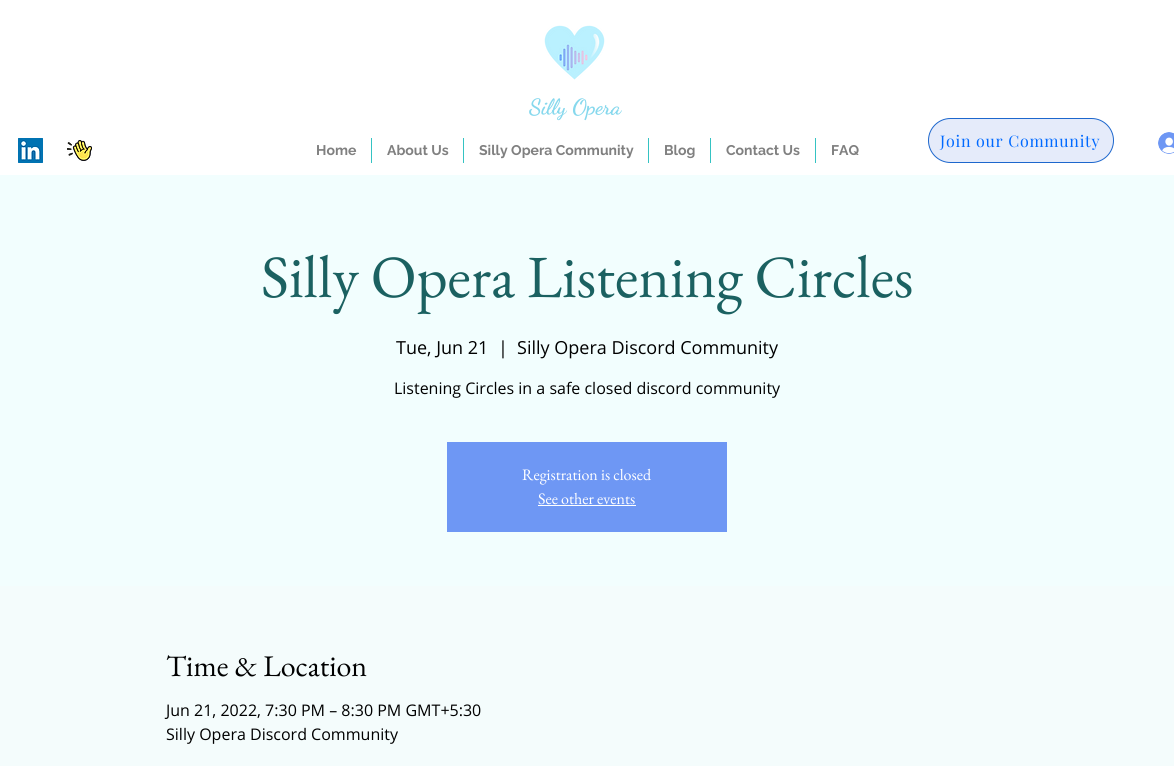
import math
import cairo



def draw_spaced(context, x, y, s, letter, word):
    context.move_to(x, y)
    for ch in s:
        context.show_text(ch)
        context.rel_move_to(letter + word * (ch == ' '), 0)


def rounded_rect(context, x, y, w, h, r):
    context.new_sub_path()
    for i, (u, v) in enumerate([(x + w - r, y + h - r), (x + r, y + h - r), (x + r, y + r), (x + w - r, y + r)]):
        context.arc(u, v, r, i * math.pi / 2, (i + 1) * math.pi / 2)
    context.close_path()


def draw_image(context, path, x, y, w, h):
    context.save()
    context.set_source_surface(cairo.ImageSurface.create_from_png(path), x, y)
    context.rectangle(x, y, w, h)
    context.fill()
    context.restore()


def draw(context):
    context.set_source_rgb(1, 1, 1)
    context.paint()
    draw_image(context, "images/1.png", 544, 25, 61, 55)
    draw_image(context, "images/2.png", 18, 138, 25, 25)
    draw_image(context, "images/3.png", 67, 140, 25, 21)
    context.set_source_rgb(229 / 255, 235 / 255, 250 / 255)
    rounded_rect(context, 928.5, 118.5, 185, 44, 22)
    context.fill_preserve()
    context.set_source_rgb(29 / 255, 103 / 255, 205 / 255)
    context.set_line_width(1)
    context.stroke()
    draw_image(context, "images/4.png", 1158, 132, 16, 22)
    draw_image(context, "images/5.png", 18, 138, 25, 25)
    draw_image(context, "images/6.png", 67, 140, 25, 21)
    context.set_source_rgb(53 / 255, 195 / 255, 195 / 255)
    context.rectangle(371, 138, 1, 25)
    context.fill()
    context.rectangle(463, 138, 1, 25)
    context.fill()
    context.rectangle(648, 138, 1, 25)
    context.fill()
    context.rectangle(710, 138, 1, 25)
    context.fill()
    context.rectangle(815, 138, 1, 25)
    context.fill()
    context.set_source_rgb(242 / 255, 254 / 255, 254 / 255)
    context.rectangle(0, 175, 1174, 411)
    context.fill()
    context.set_source_rgb(110 / 255, 151 / 255, 244 / 255)
    context.rectangle(447, 442, 280, 90)
    context.fill()
    context.set_source_rgb(1, 1, 1)
    context.rectangle(538, 505, 98, 1)
    context.fill()
    context.set_source_rgb(244 / 255, 252 / 255, 252 / 255)
    context.rectangle(0, 586, 1174, 180)
    context.fill()
    context.select_font_face("Dancing Script", cairo.FontSlant.NORMAL, cairo.FontWeight.BOLD)
    context.set_font_size(22)
    context.set_source_rgb(134 / 255, 216 / 255, 237 / 255)
    context.move_to(529, 114)
    context.show_text("Silly Opera")
    context.select_font_face("Playfair Display")
    context.set_font_size(16)
    context.set_source_rgb(0, 105 / 255, 1)
    draw_spaced(context, 940, 147, "Join our Community", 0.75, 0)
    context.select_font_face("Raleway", cairo.FontSlant.NORMAL, cairo.FontWeight.BOLD)
    context.set_font_size(14)
    context.set_source_rgb(128 / 255, 128 / 255, 128 / 255)
    context.move_to(316, 155)
    context.show_text("Home")
    context.move_to(387, 155)
    context.show_text("About Us")
    context.move_to(479, 155)
    context.show_text("Silly Opera Community")
    context.move_to(664, 155)
    context.show_text("Blog")
    context.move_to(726, 155)
    context.show_text("Contact Us")
    context.move_to(831, 155)
    context.show_text("FAQ")
    context.select_font_face("EB Garamond")
    context.set_font_size(60)
    context.set_source_rgb(27 / 255, 97 / 255, 97 / 255)
    context.move_to(261, 297)
    context.show_text("Silly Opera Listening Circles")
    context.select_font_face("Open Sans")
    context.set_font_size(18)
    context.set_source_rgb(0, 0, 0)
    context.move_to(396, 354)
    context.show_text("Tue, Jun 21")
    context.move_to(498, 354)
    context.show_text("|")
    context.move_to(517, 354)
    context.show_text("Silly Opera Discord Community")
    context.set_font_size(16)
    context.move_to(394, 394)
    context.show_text("Listening Circles in a safe closed discord community")
    context.select_font_face("EB Garamond")
    context.set_source_rgb(1, 1, 1)
    context.move_to(522, 480)
    context.show_text("Registration is closed")
    context.move_to(538, 504)
    context.show_text("See other events")
    context.set_font_size(30)
    context.set_source_rgb(0, 0, 0)
    context.move_to(166, 676)
    context.show_text("Time & Location")
    context.select_font_face("Open Sans")
    context.set_font_size(16)
    context.move_to(166, 716)
    context.show_text("Jun 21, 2022, 7:30 PM – 8:30 PM GMT+5:30")
    context.move_to(166, 740)
    context.show_text("Silly Opera Discord Community")


surface = cairo.ImageSurface(cairo.Format.RGB24, 1174, 766)
context = cairo.Context(surface)
options = cairo.FontOptions()
options.set_hint_metrics(cairo.HintMetrics.OFF)
options.set_hint_style(cairo.HintStyle.NONE)
context.set_font_options(options)
context.set_miter_limit(4)
draw(context)
surface.write_to_png("out.png")
